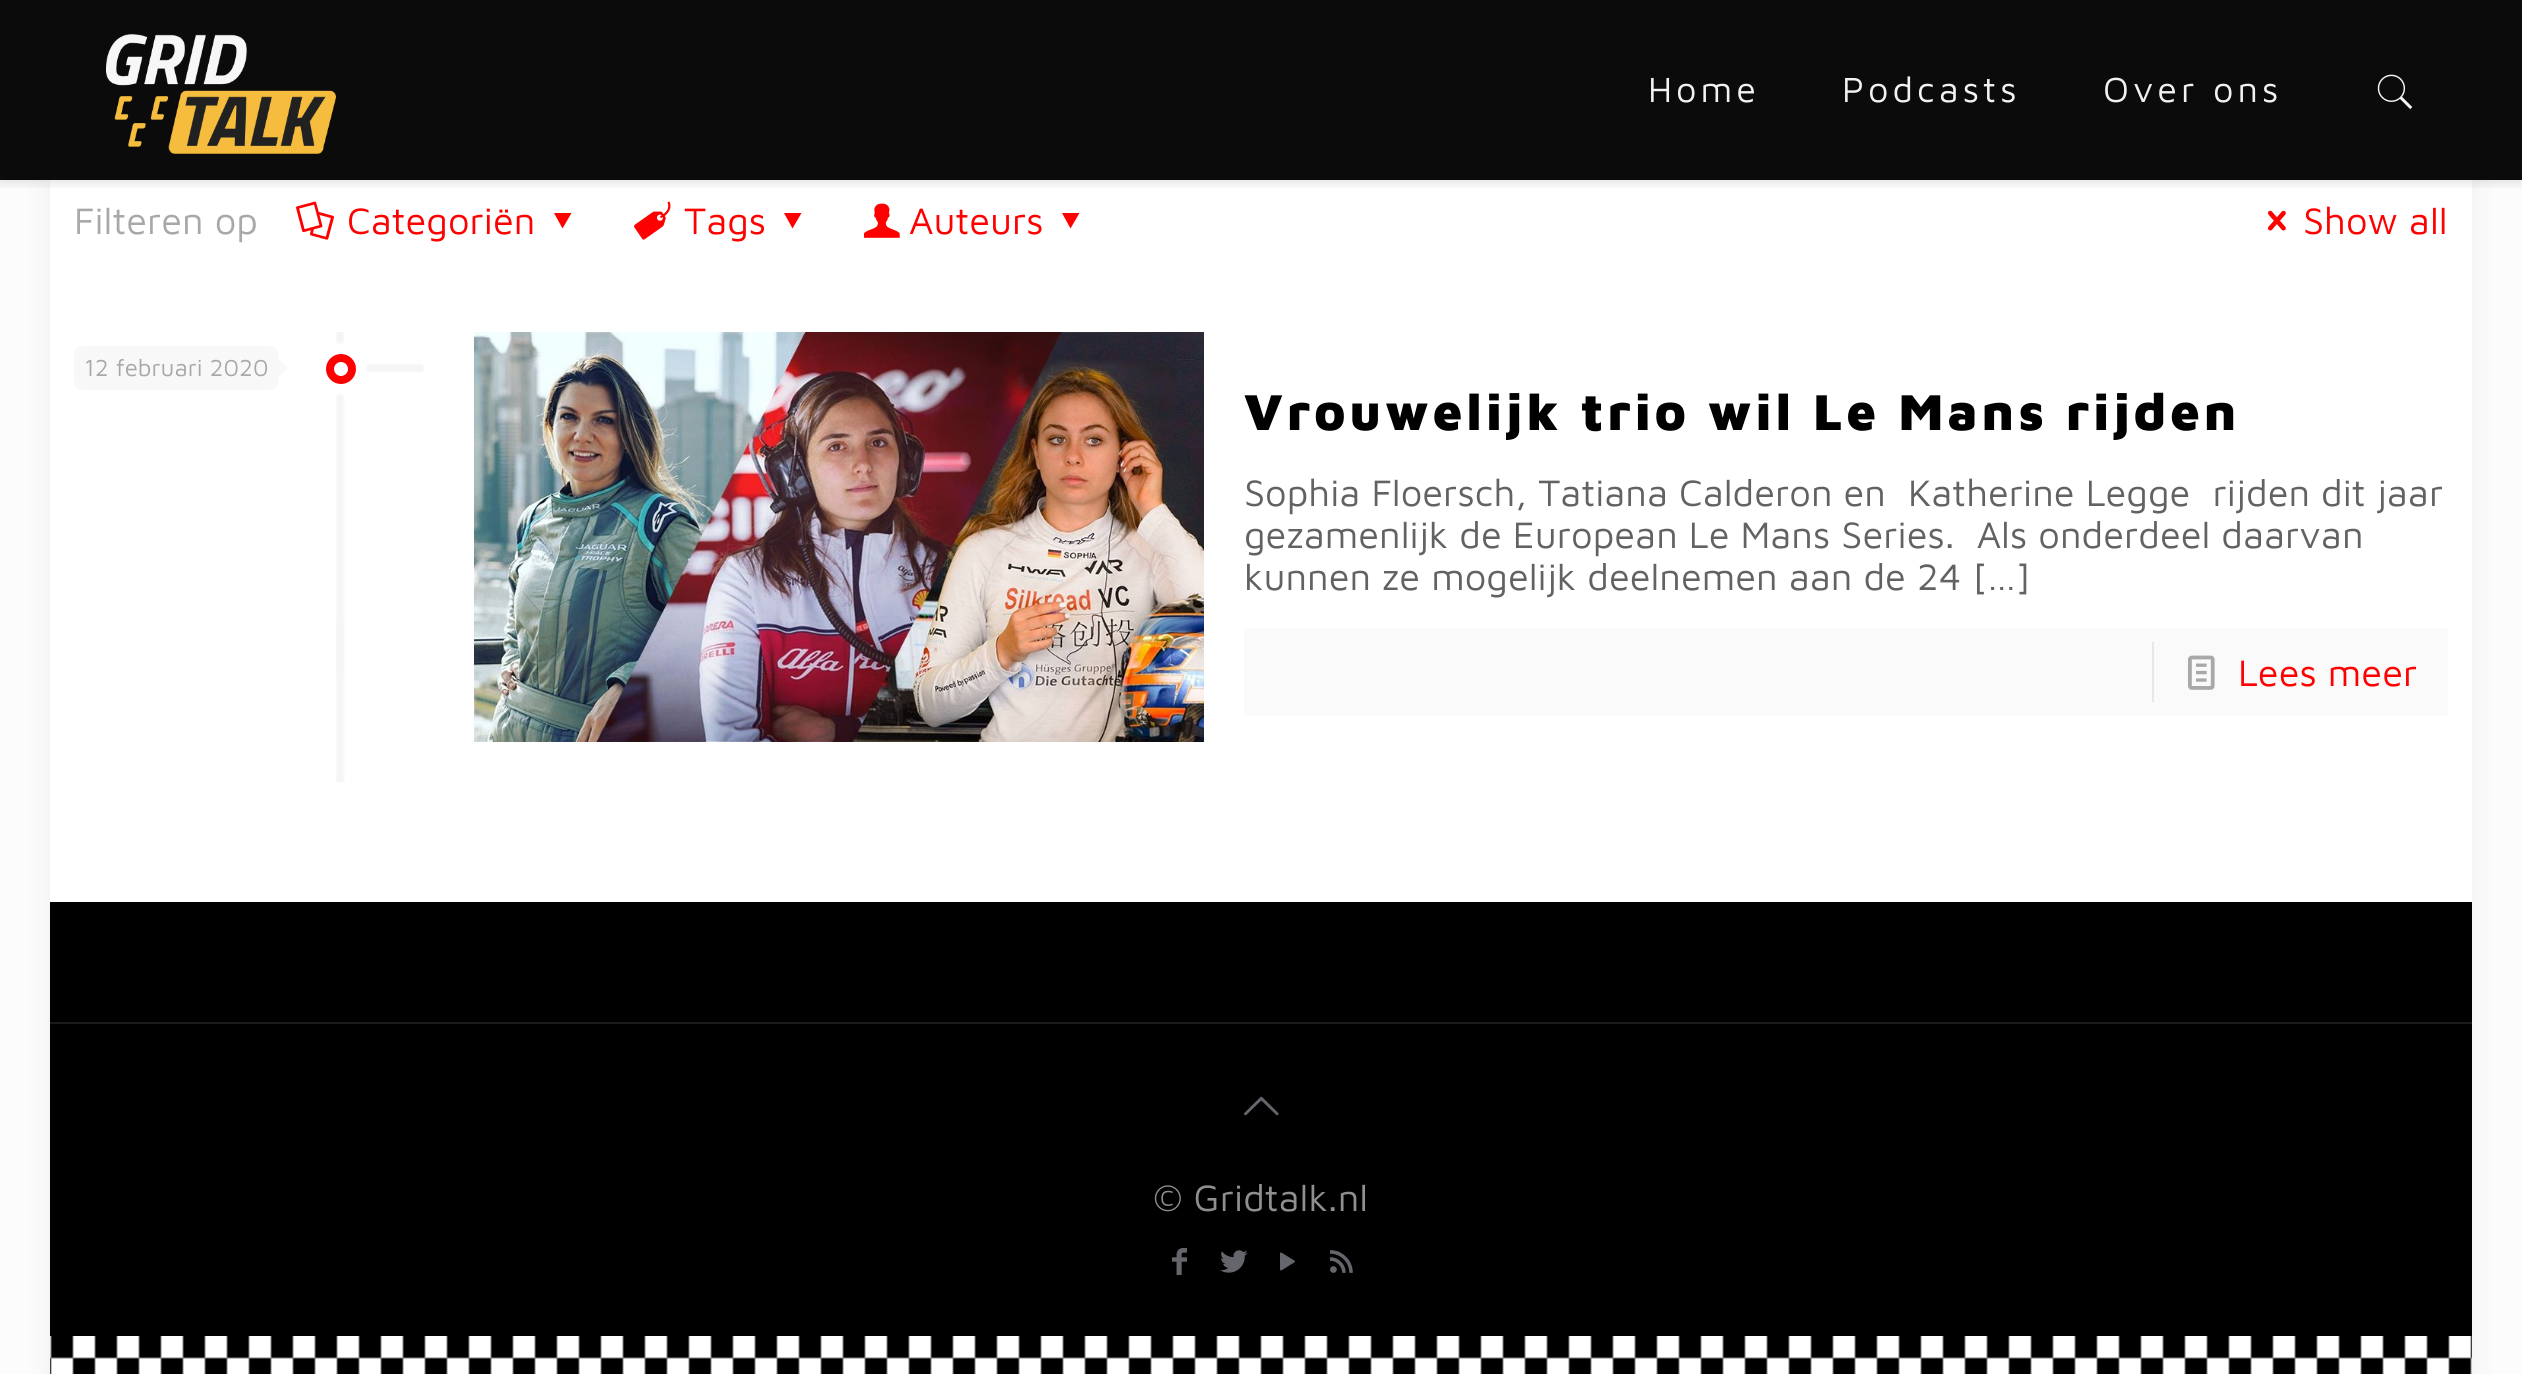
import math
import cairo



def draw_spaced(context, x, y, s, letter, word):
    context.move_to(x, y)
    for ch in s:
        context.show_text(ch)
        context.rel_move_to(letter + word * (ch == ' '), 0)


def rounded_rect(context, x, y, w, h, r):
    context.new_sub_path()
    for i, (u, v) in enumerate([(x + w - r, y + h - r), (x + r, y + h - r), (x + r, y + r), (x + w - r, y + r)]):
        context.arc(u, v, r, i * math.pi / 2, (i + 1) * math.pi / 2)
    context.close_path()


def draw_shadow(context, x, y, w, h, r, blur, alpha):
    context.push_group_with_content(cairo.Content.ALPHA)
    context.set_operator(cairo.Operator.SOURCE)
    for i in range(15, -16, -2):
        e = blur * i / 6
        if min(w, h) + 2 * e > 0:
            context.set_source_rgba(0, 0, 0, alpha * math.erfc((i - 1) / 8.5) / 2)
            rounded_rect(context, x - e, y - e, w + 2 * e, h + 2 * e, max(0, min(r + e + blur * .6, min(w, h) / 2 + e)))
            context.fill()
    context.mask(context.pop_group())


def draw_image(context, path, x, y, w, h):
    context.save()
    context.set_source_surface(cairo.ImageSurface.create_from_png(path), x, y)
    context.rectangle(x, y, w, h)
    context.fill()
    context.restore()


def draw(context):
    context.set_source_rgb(252 / 255, 252 / 255, 252 / 255)
    context.paint()
    context.set_source_rgb(0, 0, 0)
    draw_shadow(context, 50, 50, 2422, 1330, 0, 15, 0.06)
    context.set_source_rgb(1, 1, 1)
    context.rectangle(50, 50, 2422, 852)
    context.fill()
    context.save()
    context.rectangle(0, 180, 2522, 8)
    context.clip()
    context.set_source_rgb(0, 0, 0)
    draw_shadow(context, 0, 4, 2522, 180, 0, 5, 0.1)
    context.restore()
    context.set_source_rgba(5 / 255, 5 / 255, 5 / 255, 0.97)
    context.rectangle(0, 0, 2522, 180)
    context.fill()
    draw_image(context, "images/1.png", 106, 34, 230, 120)
    draw_image(context, "images/2.png", 2377, 74, 36, 36)
    draw_image(context, "images/3.png", 296, 201, 38, 39)
    context.set_source_rgb(1, 0, 0)
    context.new_path()
    context.move_to(571.5, 213)
    context.line_to(562.5, 228.5)
    context.line_to(554, 213)
    context.close_path()
    context.fill()
    draw_image(context, "images/4.png", 634, 201, 37, 39)
    context.new_path()
    context.move_to(801.5, 213)
    context.line_to(792.5, 228.5)
    context.line_to(784, 213)
    context.close_path()
    context.fill()
    draw_image(context, "images/5.png", 864, 203, 36, 35)
    context.new_path()
    context.move_to(1079.5, 213)
    context.line_to(1070.5, 228.5)
    context.line_to(1062, 213)
    context.close_path()
    context.fill()
    draw_image(context, "images/6.png", 2268, 210, 18, 21)
    draw_image(context, "images/7.png", 336, 332, 88, 450)
    context.set_source_rgb(248 / 255, 248 / 255, 248 / 255)
    rounded_rect(context, 74, 346, 204, 44, 8)
    context.fill()
    context.new_path()
    context.move_to(278, 378)
    context.line_to(278, 358)
    context.line_to(288, 368)
    context.close_path()
    context.fill()
    context.arc(341, 369, 11, 0, 2 * math.pi)
    context.set_source_rgb(1, 0, 0)
    context.set_line_width(8)
    context.stroke()
    draw_image(context, "images/8.png", 474, 332, 730, 410)
    context.set_source_rgb(250 / 255, 250 / 255, 250 / 255)
    context.rectangle(1244, 628, 1204, 88)
    context.fill()
    context.set_source_rgb(230 / 255, 230 / 255, 230 / 255)
    context.rectangle(2152, 642, 2, 60)
    context.fill()
    draw_image(context, "images/9.png", 2188, 655, 27, 35)
    context.set_source_rgb(0, 0, 0)
    context.rectangle(50, 902, 2422, 434)
    context.fill()
    draw_image(context, "images/10.png", 50, 1336, 2422, 38)
    context.set_source_rgb(26 / 255, 26 / 255, 26 / 255)
    context.rectangle(50, 1022, 2422, 2)
    context.fill()
    draw_image(context, "images/11.png", 1244, 1096, 35, 20)
    draw_image(context, "images/12.png", 1172, 1248, 15, 27)
    draw_image(context, "images/13.png", 1220, 1250, 28, 23)
    draw_image(context, "images/14.png", 1280, 1252, 15, 19)
    draw_image(context, "images/15.png", 1330, 1250, 23, 23)
    context.select_font_face("Maven Pro")
    context.set_font_size(36)
    context.set_source_rgb(242 / 255, 242 / 255, 242 / 255)
    draw_spaced(context, 1648, 102, "Home", 4, 0)
    draw_spaced(context, 1842, 102, "Podcasts", 4, 0)
    draw_spaced(context, 2103, 102, "Over ons", 4, 0)
    context.set_font_size(38)
    context.set_source_rgb(168 / 255, 168 / 255, 168 / 255)
    context.move_to(74, 234)
    context.show_text("Filteren op")
    context.set_source_rgb(1, 0, 0)
    context.move_to(347, 234)
    context.show_text("Categoriën")
    context.move_to(684, 234)
    context.show_text("Tags")
    context.move_to(909, 234)
    context.show_text("Auteurs")
    context.move_to(2303, 234)
    context.show_text("Show all")
    context.set_font_size(24)
    context.set_source_rgb(168 / 255, 168 / 255, 168 / 255)
    context.move_to(84, 376)
    context.show_text("12 februari 2020")
    context.select_font_face("Maven Pro Black")
    context.set_font_size(52)
    context.set_source_rgb(0, 0, 0)
    draw_spaced(context, 1244, 430, "Vrouwelijk trio wil Le Mans rijden", 4, 0)
    context.select_font_face("Maven Pro")
    context.set_font_size(38)
    context.set_source_rgb(98 / 255, 98 / 255, 98 / 255)
    context.move_to(1244, 506)
    context.show_text("Sophia Floersch, Tatiana Calderon en  Katherine Legge  rijden dit jaar")
    context.move_to(1244, 548)
    context.show_text("gezamenlijk de European Le Mans Series.  Als onderdeel daarvan")
    context.move_to(1244, 590)
    context.show_text("kunnen ze mogelijk deelnemen aan de 24 […]")
    context.set_source_rgb(1, 0, 0)
    context.move_to(2238, 686)
    context.show_text("Lees meer")
    context.set_source_rgb(143 / 255, 143 / 255, 143 / 255)
    context.move_to(1153, 1211)
    context.show_text("© Gridtalk.nl")


surface = cairo.ImageSurface(cairo.Format.RGB24, 2522, 1374)
context = cairo.Context(surface)
options = cairo.FontOptions()
options.set_hint_metrics(cairo.HintMetrics.OFF)
options.set_hint_style(cairo.HintStyle.NONE)
context.set_font_options(options)
context.set_miter_limit(4)
draw(context)
surface.write_to_png("out.png")
